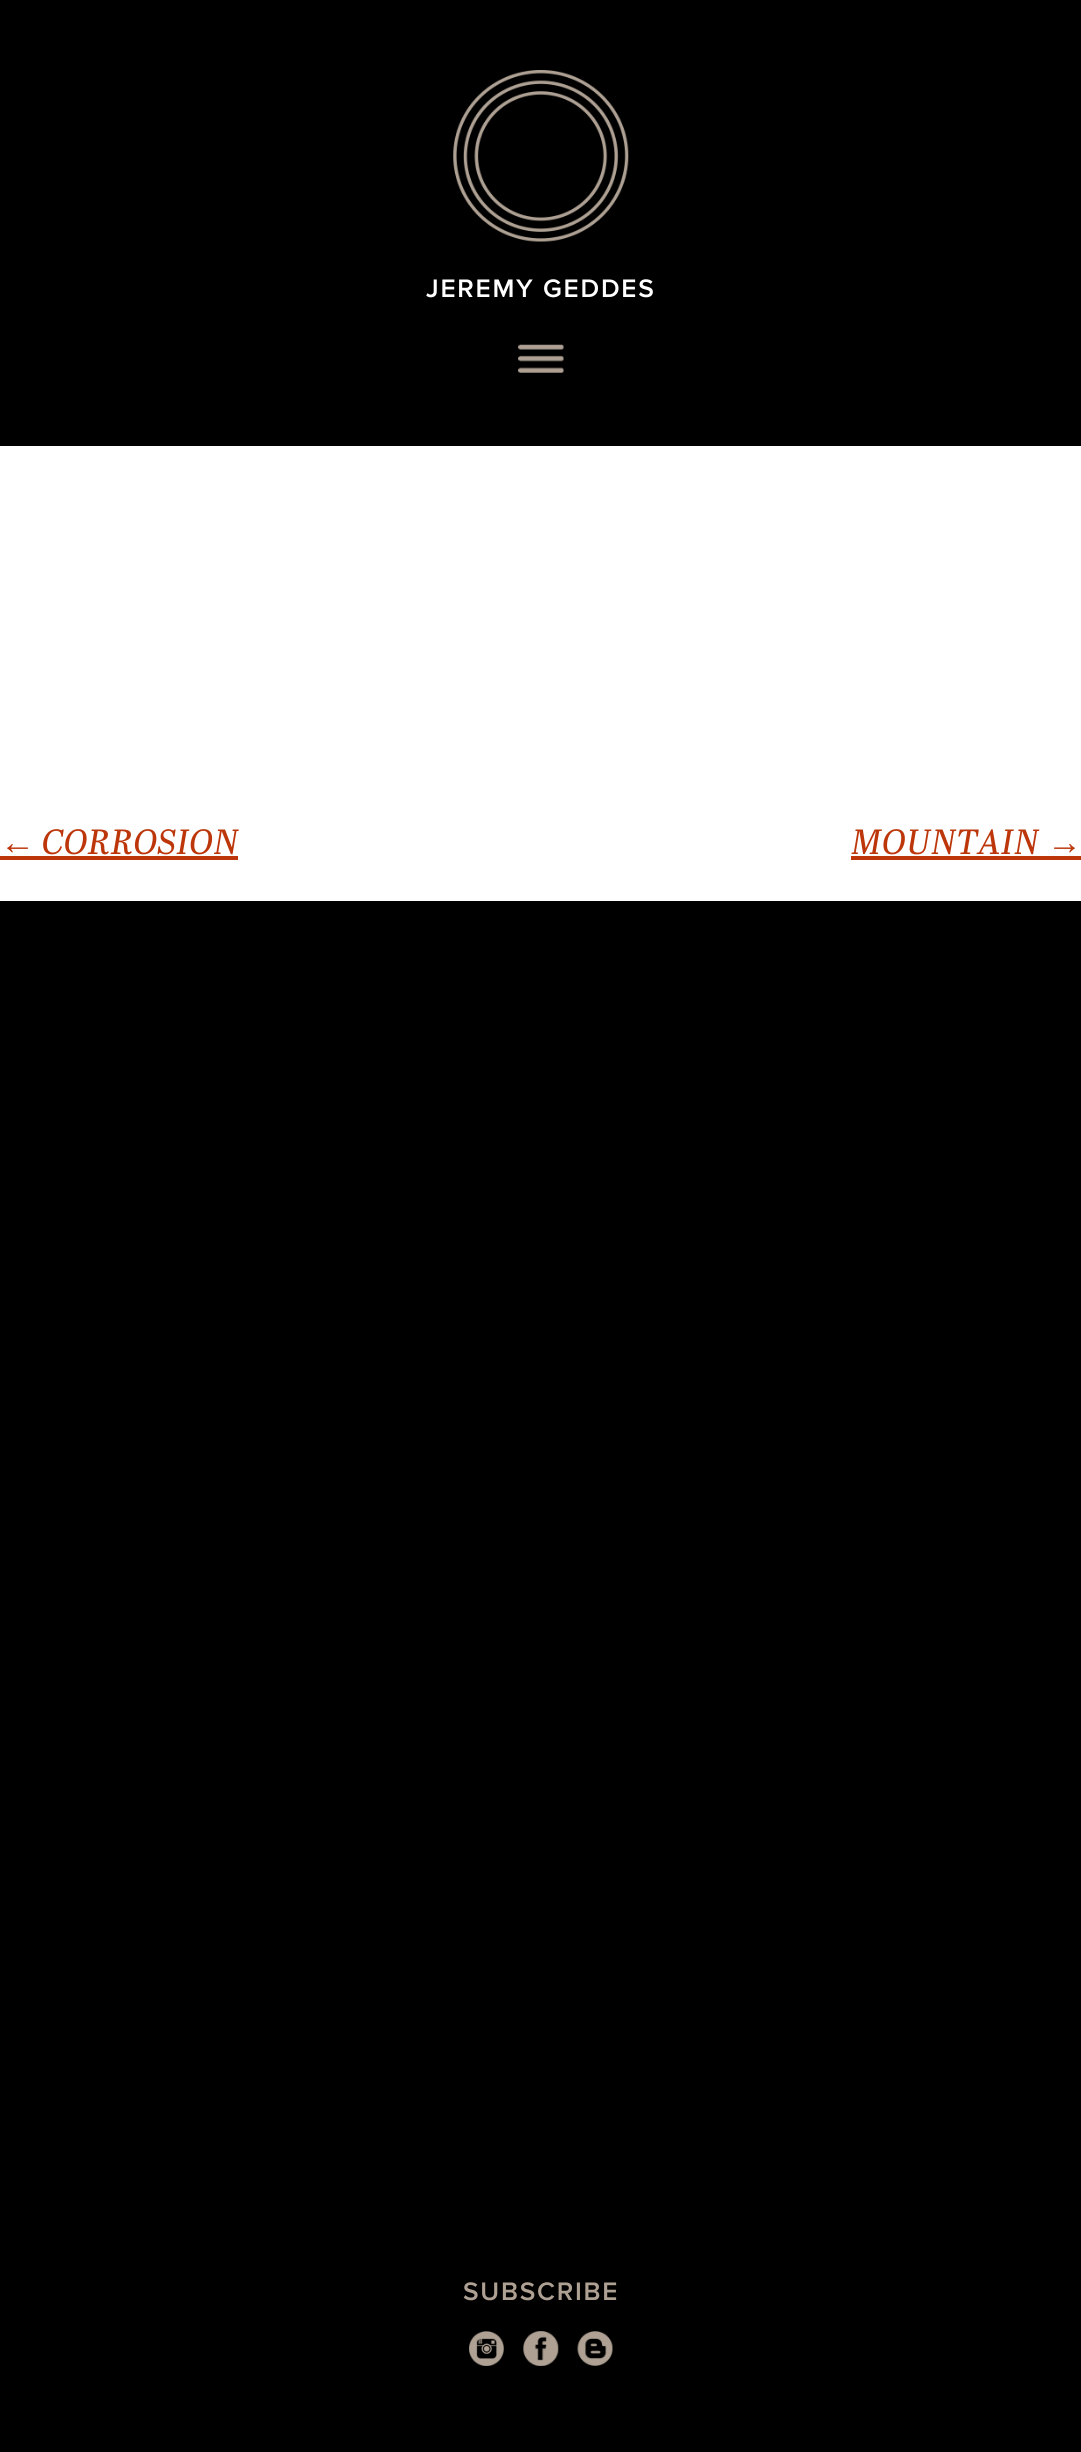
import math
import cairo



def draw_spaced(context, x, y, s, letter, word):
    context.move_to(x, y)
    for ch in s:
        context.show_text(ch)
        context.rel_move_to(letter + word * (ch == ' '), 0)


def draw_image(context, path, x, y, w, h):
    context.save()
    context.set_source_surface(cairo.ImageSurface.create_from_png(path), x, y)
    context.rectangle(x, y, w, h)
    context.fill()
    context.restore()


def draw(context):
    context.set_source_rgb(0, 0, 0)
    context.paint()
    draw_image(context, "images/1.png", 453, 70, 176, 172)
    draw_image(context, "images/2.png", 518, 344, 46, 29)
    context.set_source_rgb(1, 1, 1)
    context.rectangle(0, 446, 1081, 455)
    context.fill()
    context.set_source_rgb(188 / 255, 54 / 255, 10 / 255)
    context.rectangle(0, 856, 238, 4)
    context.fill()
    context.rectangle(851, 856, 230, 4)
    context.fill()
    draw_image(context, "images/3.png", 469, 2331, 35, 35)
    draw_image(context, "images/4.png", 523, 2331, 36, 35)
    draw_image(context, "images/5.png", 577, 2331, 36, 35)
    context.select_font_face("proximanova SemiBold")
    context.set_font_size(26.25)
    context.set_source_rgb(1, 1, 1)
    draw_spaced(context, 426, 297, "JEREMY GEDDES", 1.75, 0)
    context.select_font_face("Liberation Sans", cairo.FontSlant.ITALIC)
    context.set_font_size(35)
    context.set_source_rgb(188 / 255, 54 / 255, 10 / 255)
    context.move_to(0, 854)
    context.show_text("←")
    context.select_font_face("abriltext", cairo.FontSlant.ITALIC)
    context.move_to(42, 854)
    context.show_text("CORROSION")
    context.move_to(851, 854)
    context.show_text("MOUNTAIN")
    context.select_font_face("Liberation Sans", cairo.FontSlant.ITALIC)
    context.move_to(1047, 854)
    context.show_text("→")
    context.select_font_face("proximanova SemiBold")
    context.set_font_size(26.25)
    context.set_source_rgb(174 / 255, 161 / 255, 148 / 255)
    draw_spaced(context, 463, 2300, "SUBSCRIBE", 1.75, 0)


surface = cairo.ImageSurface(cairo.Format.RGB24, 1081, 2452)
context = cairo.Context(surface)
options = cairo.FontOptions()
options.set_hint_metrics(cairo.HintMetrics.OFF)
options.set_hint_style(cairo.HintStyle.NONE)
context.set_font_options(options)
context.set_miter_limit(4)
draw(context)
surface.write_to_png("out.png")
